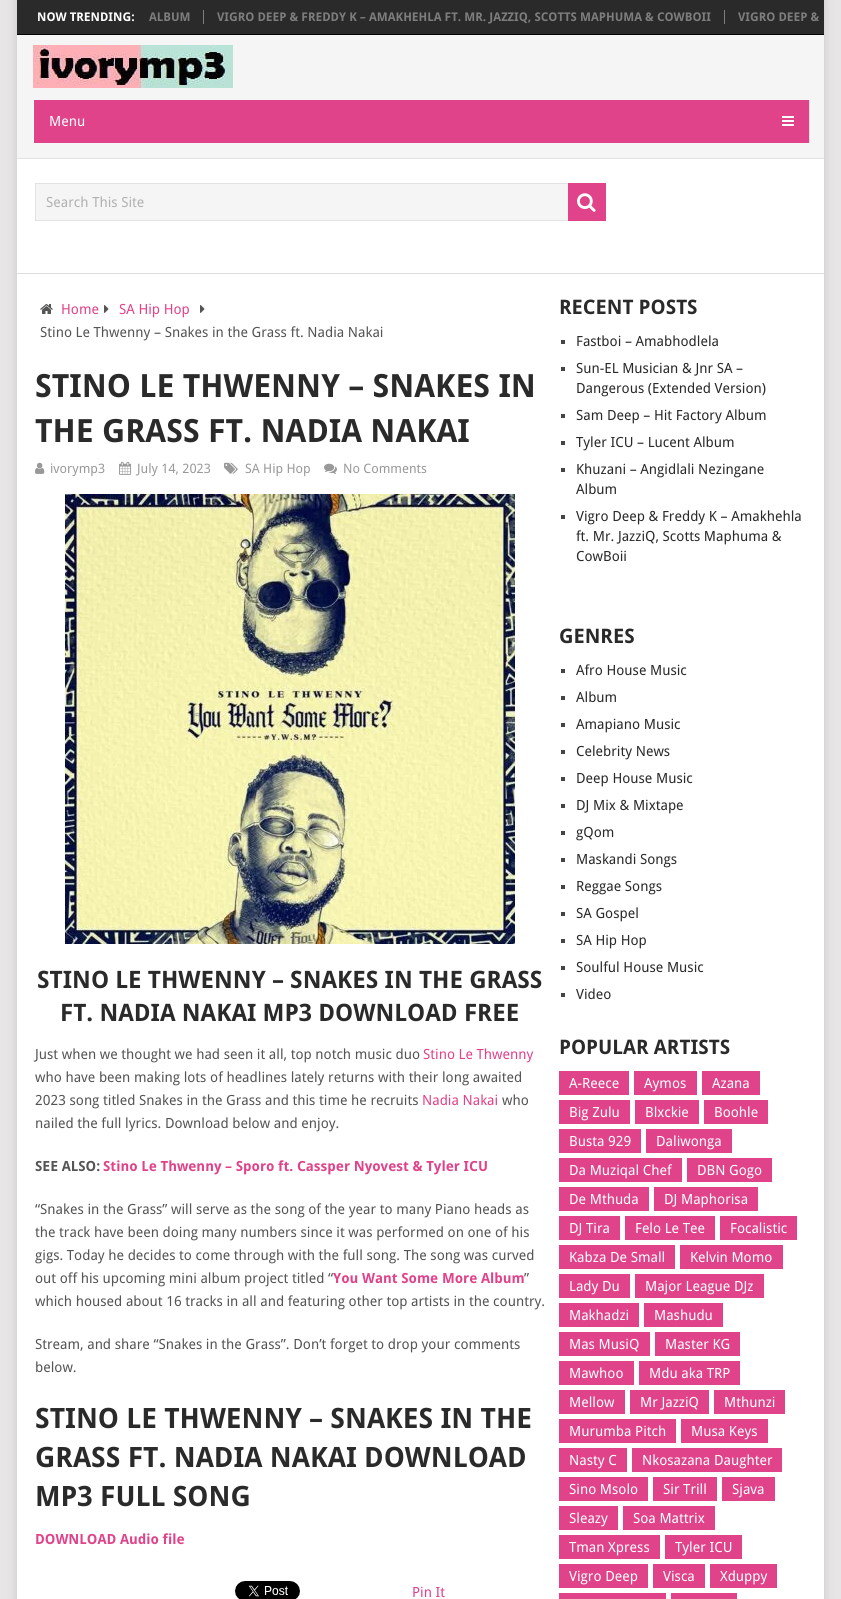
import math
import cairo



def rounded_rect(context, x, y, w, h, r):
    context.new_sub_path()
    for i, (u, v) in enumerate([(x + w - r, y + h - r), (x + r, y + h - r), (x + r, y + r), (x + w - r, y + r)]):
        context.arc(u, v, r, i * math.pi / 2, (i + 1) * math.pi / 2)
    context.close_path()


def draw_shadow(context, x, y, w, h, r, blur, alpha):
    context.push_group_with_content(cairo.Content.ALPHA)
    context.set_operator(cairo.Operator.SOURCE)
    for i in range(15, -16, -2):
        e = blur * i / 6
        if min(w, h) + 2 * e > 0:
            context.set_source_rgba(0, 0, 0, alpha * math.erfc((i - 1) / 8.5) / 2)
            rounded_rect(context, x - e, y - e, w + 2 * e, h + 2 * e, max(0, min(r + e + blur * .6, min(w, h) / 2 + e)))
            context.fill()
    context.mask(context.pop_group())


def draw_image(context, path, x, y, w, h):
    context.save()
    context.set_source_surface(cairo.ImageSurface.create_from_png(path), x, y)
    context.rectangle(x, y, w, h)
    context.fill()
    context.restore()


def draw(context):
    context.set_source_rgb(231 / 255, 229 / 255, 230 / 255)
    context.paint()
    context.set_source_rgb(50 / 255, 50 / 255, 50 / 255)
    draw_shadow(context, 17, 0, 807, 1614, 0, 5, 0.17)
    context.set_source_rgb(1, 1, 1)
    context.rectangle(17, 159, 807, 1440)
    context.fill()
    context.set_source_rgb(42 / 255, 42 / 255, 42 / 255)
    context.rectangle(17, 0, 807, 34)
    context.fill()
    context.set_source_rgb(0, 0, 0)
    context.rectangle(17, 34, 807, 1)
    context.fill()
    context.set_source_rgb(125 / 255, 125 / 255, 125 / 255)
    context.rectangle(203, 10, 1, 14)
    context.fill()
    context.rectangle(724, 10, 1, 14)
    context.fill()
    context.set_source_rgb(245 / 255, 245 / 255, 245 / 255)
    context.rectangle(17, 35, 807, 123)
    context.fill()
    context.set_source_rgb(226 / 255, 226 / 255, 226 / 255)
    context.rectangle(17, 158, 807, 1)
    context.fill()
    draw_image(context, "images/1.png", 33, 45, 200, 43)
    context.set_source_rgb(224 / 255, 67 / 255, 138 / 255)
    context.rectangle(34, 100, 775, 43)
    context.fill()
    context.set_source_rgb(226 / 255, 226 / 255, 226 / 255)
    context.rectangle(809, 100, 1, 43)
    context.fill()
    context.set_source_rgb(1, 1, 1)
    context.rectangle(33, 100, 1, 43)
    context.fill()
    draw_image(context, "images/2.png", 782, 116, 12, 10)
    context.set_source_rgb(221 / 255, 221 / 255, 221 / 255)
    context.rectangle(17, 273, 807, 1)
    context.fill()
    context.set_source_rgb(245 / 255, 245 / 255, 245 / 255)
    context.rectangle(36, 184, 532, 36)
    context.fill()
    context.rectangle(35.5, 183.5, 570, 37)
    context.set_source_rgb(226 / 255, 226 / 255, 226 / 255)
    context.set_line_width(1)
    context.stroke()
    context.set_source_rgb(224 / 255, 67 / 255, 138 / 255)
    context.rectangle(568, 183, 38, 38)
    context.fill()
    draw_image(context, "images/3.png", 577, 193, 19, 19)
    draw_image(context, "images/4.png", 40, 304, 13, 10)
    draw_image(context, "images/5.png", 104, 305, 5, 8)
    draw_image(context, "images/5.png", 200, 305, 5, 8)
    draw_image(context, "images/6.png", 35, 462, 10, 12)
    draw_image(context, "images/7.png", 119, 461, 13, 14)
    draw_image(context, "images/8.png", 224, 462, 14, 12)
    draw_image(context, "images/9.png", 324, 463, 13, 11)
    draw_image(context, "images/10.png", 65, 494, 450, 450)
    draw_image(context, "images/11.png", 235, 1581, 65, 18)
    context.set_source_rgb(68 / 255, 68 / 255, 68 / 255)
    context.rectangle(561, 340, 4, 4)
    context.fill()
    context.rectangle(561, 367, 4, 4)
    context.fill()
    context.rectangle(561, 414, 4, 4)
    context.fill()
    context.rectangle(561, 441, 4, 4)
    context.fill()
    context.rectangle(561, 468, 4, 4)
    context.fill()
    context.rectangle(561, 515, 4, 4)
    context.fill()
    context.rectangle(561, 669, 4, 4)
    context.fill()
    context.rectangle(561, 696, 4, 4)
    context.fill()
    context.rectangle(561, 723, 4, 4)
    context.fill()
    context.rectangle(561, 750, 4, 4)
    context.fill()
    context.rectangle(561, 777, 4, 4)
    context.fill()
    context.rectangle(561, 804, 4, 4)
    context.fill()
    context.rectangle(561, 831, 4, 4)
    context.fill()
    context.rectangle(561, 858, 4, 4)
    context.fill()
    context.rectangle(561, 885, 4, 4)
    context.fill()
    context.rectangle(561, 912, 4, 4)
    context.fill()
    context.rectangle(561, 939, 4, 4)
    context.fill()
    context.rectangle(561, 966, 4, 4)
    context.fill()
    context.rectangle(561, 993, 4, 4)
    context.fill()
    context.set_source_rgb(224 / 255, 67 / 255, 138 / 255)
    context.rectangle(559, 1071, 70, 24)
    context.fill()
    context.rectangle(634, 1071, 63, 24)
    context.fill()
    context.rectangle(702, 1071, 58, 24)
    context.fill()
    context.rectangle(559, 1100, 71, 24)
    context.fill()
    context.rectangle(635, 1100, 64, 24)
    context.fill()
    context.rectangle(704, 1100, 64, 24)
    context.fill()
    context.rectangle(559, 1129, 82, 24)
    context.fill()
    context.rectangle(646, 1129, 86, 24)
    context.fill()
    context.rectangle(559, 1158, 123, 24)
    context.fill()
    context.rectangle(687, 1158, 85, 24)
    context.fill()
    context.rectangle(559, 1187, 90, 24)
    context.fill()
    context.rectangle(654, 1187, 104, 24)
    context.fill()
    context.rectangle(559, 1216, 61, 24)
    context.fill()
    context.rectangle(625, 1216, 90, 24)
    context.fill()
    context.rectangle(720, 1216, 77, 24)
    context.fill()
    context.rectangle(559, 1245, 116, 24)
    context.fill()
    context.rectangle(680, 1245, 103, 24)
    context.fill()
    context.rectangle(559, 1274, 71, 24)
    context.fill()
    context.rectangle(635, 1274, 129, 24)
    context.fill()
    context.rectangle(559, 1303, 80, 24)
    context.fill()
    context.rectangle(644, 1303, 79, 24)
    context.fill()
    context.rectangle(559, 1332, 91, 24)
    context.fill()
    context.rectangle(655, 1332, 85, 24)
    context.fill()
    context.rectangle(559, 1361, 75, 24)
    context.fill()
    context.rectangle(639, 1361, 101, 24)
    context.fill()
    context.rectangle(559, 1390, 66, 24)
    context.fill()
    context.rectangle(630, 1390, 79, 24)
    context.fill()
    context.rectangle(714, 1390, 71, 24)
    context.fill()
    context.rectangle(559, 1419, 117, 24)
    context.fill()
    context.rectangle(681, 1419, 87, 24)
    context.fill()
    context.rectangle(559, 1448, 68, 24)
    context.fill()
    context.rectangle(632, 1448, 150, 24)
    context.fill()
    context.rectangle(559, 1477, 89, 24)
    context.fill()
    context.rectangle(653, 1477, 64, 24)
    context.fill()
    context.rectangle(722, 1477, 53, 24)
    context.fill()
    context.rectangle(559, 1506, 59, 24)
    context.fill()
    context.rectangle(623, 1506, 92, 24)
    context.fill()
    context.rectangle(559, 1535, 101, 24)
    context.fill()
    context.rectangle(665, 1535, 77, 24)
    context.fill()
    context.rectangle(559, 1564, 89, 24)
    context.fill()
    context.rectangle(653, 1564, 52, 24)
    context.fill()
    context.rectangle(710, 1564, 67, 24)
    context.fill()
    context.rectangle(559, 1593, 107, 6)
    context.fill()
    context.rectangle(671, 1593, 66, 6)
    context.fill()
    context.select_font_face("Droid Sans", cairo.FontSlant.NORMAL, cairo.FontWeight.BOLD)
    context.set_font_size(12)
    context.set_source_rgb(1, 1, 1)
    context.move_to(37, 21)
    context.show_text("NOW TRENDING:")
    context.set_source_rgb(125 / 255, 125 / 255, 125 / 255)
    context.move_to(149, 21)
    context.show_text("ALBUM")
    context.move_to(217, 21)
    context.show_text("VIGRO DEEP & FREDDY K – AMAKHEHLA FT. MR. JAZZIQ, SCOTTS MAPHUMA & COWBOII")
    context.move_to(738, 21)
    context.show_text("VIGRO DEEP &")
    context.select_font_face("Droid Sans")
    context.set_font_size(14)
    context.set_source_rgb(1, 1, 1)
    context.move_to(49, 126)
    context.show_text("Menu")
    context.set_source_rgb(177 / 255, 177 / 255, 177 / 255)
    context.move_to(46, 207)
    context.show_text("Search This Site")
    context.set_source_rgb(224 / 255, 67 / 255, 138 / 255)
    context.move_to(61, 314)
    context.show_text("Home")
    context.move_to(119, 314)
    context.show_text("SA Hip Hop")
    context.set_source_rgb(85 / 255, 85 / 255, 85 / 255)
    context.move_to(40, 337)
    context.show_text("Stino Le Thwenny – Snakes in the Grass ft. Nadia Nakai")
    context.select_font_face("Droid Sans", cairo.FontSlant.NORMAL, cairo.FontWeight.BOLD)
    context.set_font_size(32)
    context.set_source_rgb(42 / 255, 42 / 255, 42 / 255)
    context.move_to(35, 397)
    context.show_text("STINO LE THWENNY – SNAKES IN")
    context.move_to(35, 442)
    context.show_text("THE GRASS FT. NADIA NAKAI")
    context.select_font_face("Droid Sans")
    context.set_font_size(13)
    context.set_source_rgb(153 / 255, 153 / 255, 153 / 255)
    context.move_to(50, 473)
    context.show_text("ivorymp3")
    context.move_to(137, 473)
    context.show_text("July 14, 2023")
    context.move_to(245, 473)
    context.show_text("SA Hip Hop")
    context.move_to(343, 473)
    context.show_text("No Comments")
    context.select_font_face("Droid Sans", cairo.FontSlant.NORMAL, cairo.FontWeight.BOLD)
    context.set_font_size(24)
    context.set_source_rgb(42 / 255, 42 / 255, 42 / 255)
    context.move_to(37, 988)
    context.show_text("STINO LE THWENNY – SNAKES IN THE GRASS")
    context.move_to(60, 1021)
    context.show_text("FT. NADIA NAKAI MP3 DOWNLOAD FREE")
    context.select_font_face("Droid Sans")
    context.set_font_size(14)
    context.set_source_rgb(85 / 255, 85 / 255, 85 / 255)
    context.move_to(35, 1059)
    context.show_text("Just when we thought we had seen it all, top notch music duo")
    context.set_source_rgb(224 / 255, 67 / 255, 138 / 255)
    context.move_to(423, 1059)
    context.show_text("Stino Le Thwenny")
    context.set_source_rgb(85 / 255, 85 / 255, 85 / 255)
    context.move_to(35, 1082)
    context.show_text("who have been making lots of headlines lately returns with their long awaited")
    context.move_to(35, 1105)
    context.show_text("2023 song titled Snakes in the Grass and this time he recruits")
    context.set_source_rgb(224 / 255, 67 / 255, 138 / 255)
    context.move_to(422, 1105)
    context.show_text("Nadia Nakai")
    context.set_source_rgb(85 / 255, 85 / 255, 85 / 255)
    context.move_to(502, 1105)
    context.show_text("who")
    context.move_to(35, 1128)
    context.show_text("nailed the full lyrics. Download below and enjoy.")
    context.select_font_face("Droid Sans", cairo.FontSlant.NORMAL, cairo.FontWeight.BOLD)
    context.move_to(35, 1171)
    context.show_text("SEE ALSO:")
    context.set_source_rgb(224 / 255, 67 / 255, 138 / 255)
    context.move_to(103, 1171)
    context.show_text("Stino Le Thwenny – Sporo ft. Cassper Nyovest & Tyler ICU")
    context.select_font_face("Droid Sans")
    context.set_source_rgb(85 / 255, 85 / 255, 85 / 255)
    context.move_to(35, 1214)
    context.show_text("“Snakes in the Grass” will serve as the song of the year to many Piano heads as")
    context.move_to(35, 1237)
    context.show_text("the track have been doing many numbers since it was performed on one of his")
    context.move_to(35, 1260)
    context.show_text("gigs. Today he decides to come through with the full song. The song was curved")
    context.move_to(35, 1283)
    context.show_text("out off his upcoming mini album project titled “")
    context.select_font_face("Droid Sans", cairo.FontSlant.NORMAL, cairo.FontWeight.BOLD)
    context.set_source_rgb(224 / 255, 67 / 255, 138 / 255)
    context.move_to(333, 1283)
    context.show_text("You Want Some More Album")
    context.select_font_face("Droid Sans")
    context.set_source_rgb(85 / 255, 85 / 255, 85 / 255)
    context.move_to(524, 1283)
    context.show_text("”")
    context.move_to(35, 1306)
    context.show_text("which housed about 16 tracks in all and featuring other top artists in the country.")
    context.move_to(35, 1349)
    context.show_text("Stream, and share “Snakes in the Grass”. Don’t forget to drop your comments")
    context.move_to(35, 1372)
    context.show_text("below.")
    context.select_font_face("Droid Sans", cairo.FontSlant.NORMAL, cairo.FontWeight.BOLD)
    context.set_font_size(28)
    context.set_source_rgb(42 / 255, 42 / 255, 42 / 255)
    context.move_to(35, 1428)
    context.show_text("STINO LE THWENNY – SNAKES IN THE")
    context.move_to(35, 1467)
    context.show_text("GRASS FT. NADIA NAKAI DOWNLOAD")
    context.move_to(35, 1506)
    context.show_text("MP3 FULL SONG")
    context.set_font_size(14)
    context.set_source_rgb(224 / 255, 67 / 255, 138 / 255)
    context.move_to(35, 1544)
    context.show_text("DOWNLOAD Audio file")
    context.select_font_face("Droid Sans")
    context.move_to(412, 1597)
    context.show_text("Pin It")
    context.select_font_face("Droid Sans", cairo.FontSlant.NORMAL, cairo.FontWeight.BOLD)
    context.set_font_size(20)
    context.set_source_rgb(42 / 255, 42 / 255, 42 / 255)
    context.move_to(559, 314)
    context.show_text("RECENT POSTS")
    context.select_font_face("Droid Sans")
    context.set_font_size(14)
    context.move_to(576, 346)
    context.show_text("Fastboi – Amabhodlela")
    context.move_to(576, 373)
    context.show_text("Sun-EL Musician & Jnr SA –")
    context.move_to(576, 393)
    context.show_text("Dangerous (Extended Version)")
    context.move_to(576, 420)
    context.show_text("Sam Deep – Hit Factory Album")
    context.move_to(576, 447)
    context.show_text("Tyler ICU – Lucent Album")
    context.move_to(576, 474)
    context.show_text("Khuzani – Angidlali Nezingane")
    context.move_to(576, 494)
    context.show_text("Album")
    context.move_to(576, 521)
    context.show_text("Vigro Deep & Freddy K – Amakhehla")
    context.move_to(576, 541)
    context.show_text("ft. Mr. JazziQ, Scotts Maphuma &")
    context.move_to(576, 561)
    context.show_text("CowBoii")
    context.select_font_face("Droid Sans", cairo.FontSlant.NORMAL, cairo.FontWeight.BOLD)
    context.set_font_size(20)
    context.move_to(559, 643)
    context.show_text("GENRES")
    context.select_font_face("Droid Sans")
    context.set_font_size(14)
    context.move_to(576, 675)
    context.show_text("Afro House Music")
    context.move_to(576, 702)
    context.show_text("Album")
    context.move_to(576, 729)
    context.show_text("Amapiano Music")
    context.move_to(576, 756)
    context.show_text("Celebrity News")
    context.move_to(576, 783)
    context.show_text("Deep House Music")
    context.move_to(576, 810)
    context.show_text("DJ Mix & Mixtape")
    context.move_to(576, 837)
    context.show_text("gQom")
    context.move_to(576, 864)
    context.show_text("Maskandi Songs")
    context.move_to(576, 891)
    context.show_text("Reggae Songs")
    context.move_to(576, 918)
    context.show_text("SA Gospel")
    context.move_to(576, 945)
    context.show_text("SA Hip Hop")
    context.move_to(576, 972)
    context.show_text("Soulful House Music")
    context.move_to(576, 999)
    context.show_text("Video")
    context.select_font_face("Droid Sans", cairo.FontSlant.NORMAL, cairo.FontWeight.BOLD)
    context.set_font_size(20)
    context.move_to(559, 1054)
    context.show_text("POPULAR ARTISTS")
    context.select_font_face("Droid Sans")
    context.set_font_size(14)
    context.set_source_rgb(1, 1, 1)
    context.move_to(569, 1088)
    context.show_text("A-Reece")
    context.move_to(644, 1088)
    context.show_text("Aymos")
    context.move_to(712, 1088)
    context.show_text("Azana")
    context.move_to(569, 1117)
    context.show_text("Big Zulu")
    context.move_to(645, 1117)
    context.show_text("Blxckie")
    context.move_to(714, 1117)
    context.show_text("Boohle")
    context.move_to(569, 1146)
    context.show_text("Busta 929")
    context.move_to(656, 1146)
    context.show_text("Daliwonga")
    context.move_to(569, 1175)
    context.show_text("Da Muziqal Chef")
    context.move_to(697, 1175)
    context.show_text("DBN Gogo")
    context.move_to(569, 1204)
    context.show_text("De Mthuda")
    context.move_to(664, 1204)
    context.show_text("DJ Maphorisa")
    context.move_to(569, 1233)
    context.show_text("DJ Tira")
    context.move_to(635, 1233)
    context.show_text("Felo Le Tee")
    context.move_to(730, 1233)
    context.show_text("Focalistic")
    context.move_to(569, 1262)
    context.show_text("Kabza De Small")
    context.move_to(690, 1262)
    context.show_text("Kelvin Momo")
    context.move_to(569, 1291)
    context.show_text("Lady Du")
    context.move_to(645, 1291)
    context.show_text("Major League DJz")
    context.move_to(569, 1320)
    context.show_text("Makhadzi")
    context.move_to(654, 1320)
    context.show_text("Mashudu")
    context.move_to(569, 1349)
    context.show_text("Mas MusiQ")
    context.move_to(665, 1349)
    context.show_text("Master KG")
    context.move_to(569, 1378)
    context.show_text("Mawhoo")
    context.move_to(649, 1378)
    context.show_text("Mdu aka TRP")
    context.move_to(569, 1407)
    context.show_text("Mellow")
    context.move_to(640, 1407)
    context.show_text("Mr JazziQ")
    context.move_to(724, 1407)
    context.show_text("Mthunzi")
    context.move_to(569, 1436)
    context.show_text("Murumba Pitch")
    context.move_to(691, 1436)
    context.show_text("Musa Keys")
    context.move_to(569, 1465)
    context.show_text("Nasty C")
    context.move_to(642, 1465)
    context.show_text("Nkosazana Daughter")
    context.move_to(569, 1494)
    context.show_text("Sino Msolo")
    context.move_to(663, 1494)
    context.show_text("Sir Trill")
    context.move_to(732, 1494)
    context.show_text("Sjava")
    context.move_to(569, 1523)
    context.show_text("Sleazy")
    context.move_to(633, 1523)
    context.show_text("Soa Mattrix")
    context.move_to(569, 1552)
    context.show_text("Tman Xpress")
    context.move_to(675, 1552)
    context.show_text("Tyler ICU")
    context.move_to(569, 1581)
    context.show_text("Vigro Deep")
    context.move_to(663, 1581)
    context.show_text("Visca")
    context.move_to(720, 1581)
    context.show_text("Xduppy")


surface = cairo.ImageSurface(cairo.Format.RGB24, 841, 1599)
context = cairo.Context(surface)
options = cairo.FontOptions()
options.set_hint_metrics(cairo.HintMetrics.OFF)
options.set_hint_style(cairo.HintStyle.NONE)
context.set_font_options(options)
context.set_miter_limit(4)
draw(context)
surface.write_to_png("out.png")
